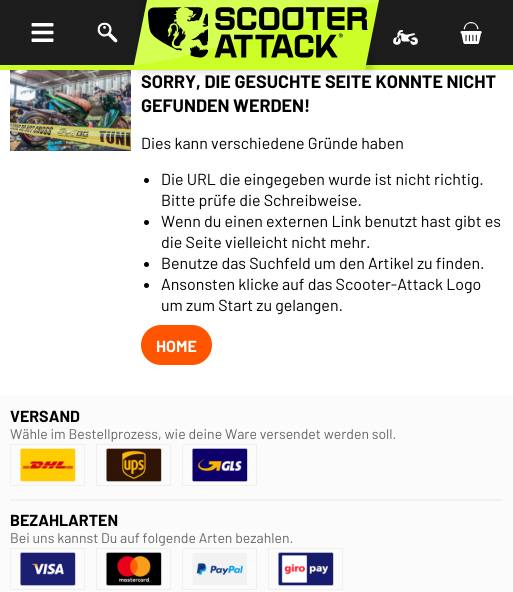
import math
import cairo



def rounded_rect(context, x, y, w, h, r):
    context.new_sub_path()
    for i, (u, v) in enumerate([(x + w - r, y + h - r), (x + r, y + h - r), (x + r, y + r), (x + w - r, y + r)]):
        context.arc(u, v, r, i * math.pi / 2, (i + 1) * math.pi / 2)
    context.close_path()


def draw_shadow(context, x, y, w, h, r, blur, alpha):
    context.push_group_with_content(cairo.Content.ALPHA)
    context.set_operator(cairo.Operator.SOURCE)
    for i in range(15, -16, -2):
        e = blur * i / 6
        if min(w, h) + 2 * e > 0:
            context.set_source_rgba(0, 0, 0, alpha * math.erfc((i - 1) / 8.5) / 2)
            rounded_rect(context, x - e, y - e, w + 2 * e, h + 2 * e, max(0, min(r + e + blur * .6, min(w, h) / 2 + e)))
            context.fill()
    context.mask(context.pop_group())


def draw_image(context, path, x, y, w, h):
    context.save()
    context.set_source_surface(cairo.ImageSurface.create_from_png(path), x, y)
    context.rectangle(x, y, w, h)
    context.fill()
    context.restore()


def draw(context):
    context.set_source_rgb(1, 1, 1)
    context.paint()
    context.set_source_rgb(29 / 255, 29 / 255, 29 / 255)
    context.rectangle(0, 0, 513, 65)
    context.fill()
    context.set_source_rgb(204 / 255, 1, 40 / 255)
    context.rectangle(0, 65, 513, 5)
    context.fill()
    draw_image(context, "images/1.png", 31, 23, 23, 19)
    draw_image(context, "images/2.png", 97, 22, 21, 21)
    draw_image(context, "images/7.png", 10, 70, 121, 81)
    context.set_source_rgb(0, 0, 0)
    draw_shadow(context, 140, 0, 232, 70, 0, 5, 0.2)
    context.set_source_rgb(204 / 255, 1, 40 / 255)
    context.new_path()
    context.move_to(147, 0)
    context.line_to(379, 0)
    context.line_to(365, 70)
    context.line_to(133, 70)
    context.close_path()
    context.fill()
    draw_image(context, "images/3.png", 133, 0, 246, 65)
    draw_image(context, "images/4.png", 148, 7, 220, 51)
    draw_image(context, "images/5.png", 393, 30, 25, 15)
    draw_image(context, "images/6.png", 460, 22, 22, 22)
    context.set_source_rgb(0, 0, 0)
    context.arc(146.5, 180.5, 2.5, 0, 2 * math.pi)
    context.fill()
    context.arc(146.5, 222.5, 2.5, 0, 2 * math.pi)
    context.fill()
    context.arc(146.5, 264.5, 2.5, 0, 2 * math.pi)
    context.fill()
    context.arc(146.5, 285.5, 2.5, 0, 2 * math.pi)
    context.fill()
    context.set_source_rgb(1, 85 / 255, 0)
    rounded_rect(context, 141, 325, 71, 40, 20)
    context.fill()
    context.set_source_rgb(251 / 255, 251 / 255, 251 / 255)
    context.rectangle(0, 395, 513, 197)
    context.fill()
    context.rectangle(10.5, 444.5, 74, 41)
    context.set_source_rgb(240 / 255, 240 / 255, 240 / 255)
    context.set_line_width(1)
    context.stroke()
    draw_image(context, "images/8.png", 20, 448, 56, 34)
    context.rectangle(96.5, 444.5, 74, 41)
    context.stroke()
    draw_image(context, "images/9.png", 106, 448, 56, 34)
    context.rectangle(182.5, 444.5, 74, 41)
    context.stroke()
    draw_image(context, "images/10.png", 192, 448, 56, 34)
    context.set_source_rgb(242 / 255, 242 / 255, 242 / 255)
    context.rectangle(10, 499, 493, 2)
    context.fill()
    context.rectangle(10.5, 548.5, 74, 41)
    context.set_source_rgb(240 / 255, 240 / 255, 240 / 255)
    context.stroke()
    draw_image(context, "images/11.png", 20, 552, 56, 34)
    context.rectangle(96.5, 548.5, 74, 41)
    context.stroke()
    draw_image(context, "images/12.png", 106, 552, 56, 34)
    context.rectangle(182.5, 548.5, 74, 41)
    context.stroke()
    draw_image(context, "images/13.png", 192, 553, 55, 32)
    context.rectangle(268.5, 548.5, 74, 41)
    context.stroke()
    draw_image(context, "images/14.png", 278, 552, 56, 34)
    context.select_font_face("Barlow", cairo.FontSlant.NORMAL, cairo.FontWeight.BOLD)
    context.set_font_size(18)
    context.set_source_rgb(0, 0, 0)
    context.move_to(141, 88)
    context.show_text("SORRY, DIE GESUCHTE SEITE KONNTE NICHT")
    context.move_to(141, 112)
    context.show_text("GEFUNDEN WERDEN!")
    context.select_font_face("Barlow")
    context.set_font_size(16)
    context.move_to(141, 149)
    context.show_text("Dies kann verschiedene Gründe haben")
    context.move_to(161, 185)
    context.show_text("Die URL die eingegeben wurde ist nicht richtig.")
    context.move_to(161, 206)
    context.show_text("Bitte prüfe die Schreibweise.")
    context.move_to(161, 227)
    context.show_text("Wenn du einen externen Link benutzt hast gibt es")
    context.move_to(161, 248)
    context.show_text("die Seite vielleicht nicht mehr.")
    context.move_to(161, 269)
    context.show_text("Benutze das Suchfeld um den Artikel zu finden.")
    context.move_to(161, 290)
    context.show_text("Ansonsten klicke auf das Scooter-Attack Logo")
    context.move_to(161, 311)
    context.show_text("um zum Start zu gelangen.")
    context.select_font_face("Barlow", cairo.FontSlant.NORMAL, cairo.FontWeight.BOLD)
    context.set_source_rgb(1, 1, 1)
    context.move_to(156, 352)
    context.show_text("HOME")
    context.set_source_rgb(0, 0, 0)
    context.move_to(10, 422)
    context.show_text("VERSAND")
    context.select_font_face("Barlow")
    context.set_font_size(14)
    context.set_source_rgb(102 / 255, 102 / 255, 102 / 255)
    context.move_to(10, 439)
    context.show_text("Wähle im Bestellprozess, wie deine Ware versendet werden soll.")
    context.select_font_face("Barlow", cairo.FontSlant.NORMAL, cairo.FontWeight.BOLD)
    context.set_font_size(16)
    context.set_source_rgb(0, 0, 0)
    context.move_to(10, 526)
    context.show_text("BEZAHLARTEN")
    context.select_font_face("Barlow")
    context.set_font_size(14)
    context.set_source_rgb(102 / 255, 102 / 255, 102 / 255)
    context.move_to(10, 543)
    context.show_text("Bei uns kannst Du auf folgende Arten bezahlen.")


surface = cairo.ImageSurface(cairo.Format.RGB24, 513, 592)
context = cairo.Context(surface)
options = cairo.FontOptions()
options.set_hint_metrics(cairo.HintMetrics.OFF)
options.set_hint_style(cairo.HintStyle.NONE)
context.set_font_options(options)
context.set_miter_limit(4)
draw(context)
surface.write_to_png("out.png")
